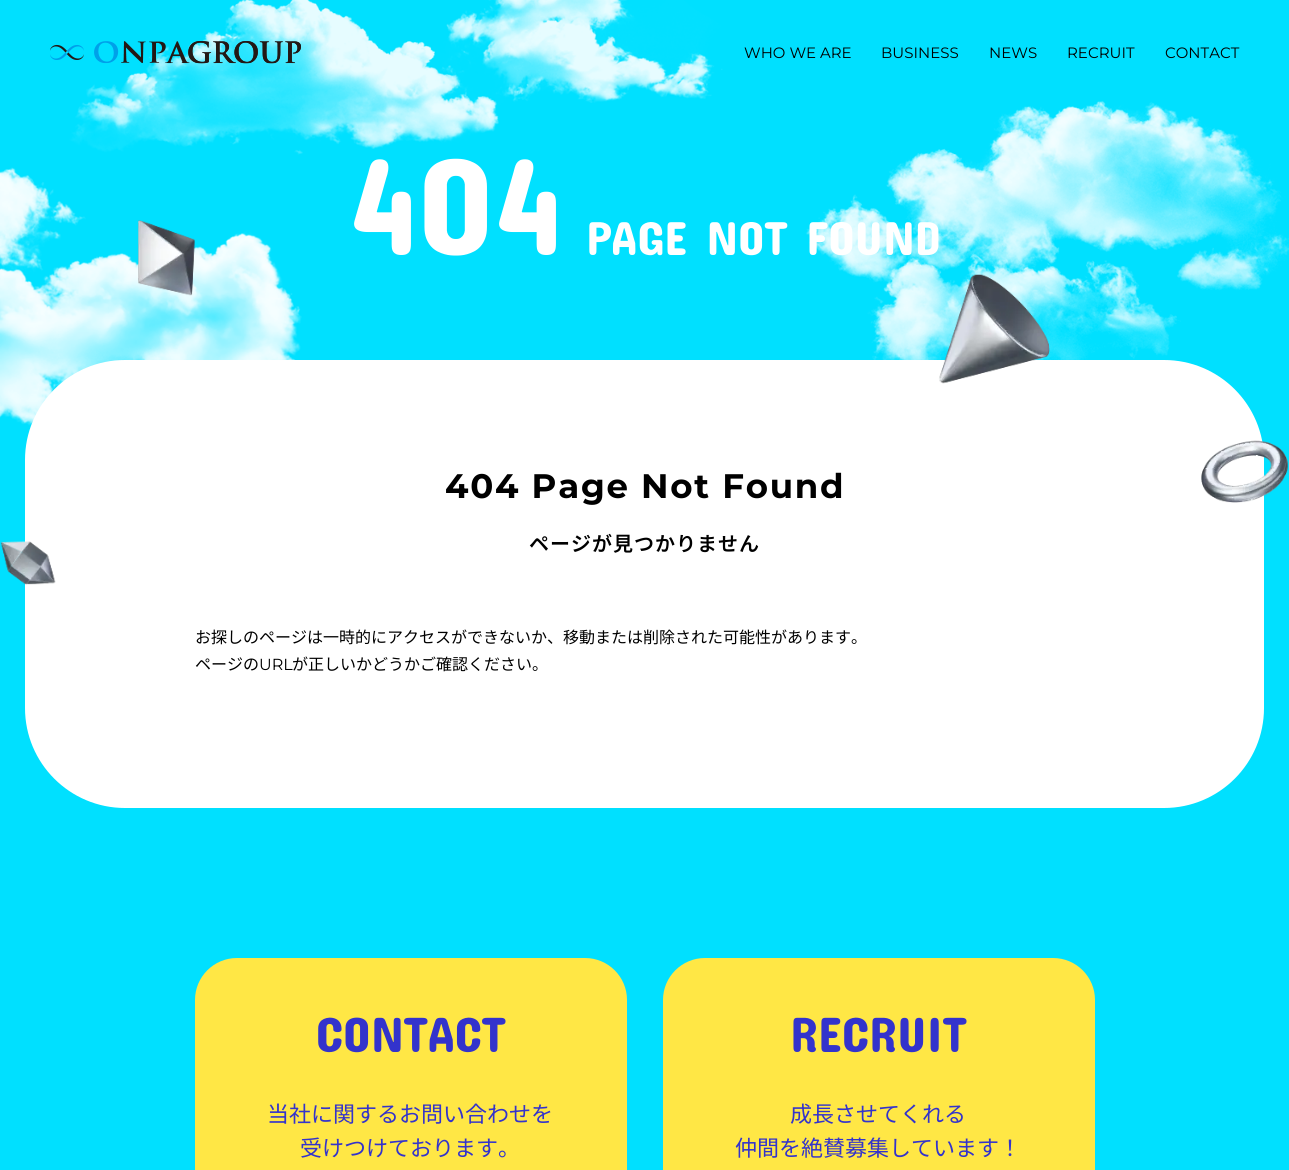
import math
import cairo



def draw_spaced(context, x, y, s, letter, word):
    context.move_to(x, y)
    for ch in s:
        context.show_text(ch)
        context.rel_move_to(letter + word * (ch == ' '), 0)


def rounded_rect(context, x, y, w, h, r):
    context.new_sub_path()
    for i, (u, v) in enumerate([(x + w - r, y + h - r), (x + r, y + h - r), (x + r, y + r), (x + w - r, y + r)]):
        context.arc(u, v, r, i * math.pi / 2, (i + 1) * math.pi / 2)
    context.close_path()


def draw_image(context, path, x, y, w, h):
    context.save()
    context.set_source_surface(cairo.ImageSurface.create_from_png(path), x, y)
    context.rectangle(x, y, w, h)
    context.fill()
    context.restore()


def draw(context):
    context.set_source_rgb(0, 224 / 255, 1)
    context.paint()
    draw_image(context, "images/1.png", 0, 0, 1289, 426)
    draw_image(context, "images/2.png", 50, 41, 251, 23)
    context.set_source_rgb(1, 1, 1)
    rounded_rect(context, 25, 360, 1239, 448, 100)
    context.fill()
    context.set_source_rgb(1, 231 / 255, 69 / 255)
    rounded_rect(context, 195, 958, 432, 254, 42)
    context.fill()
    rounded_rect(context, 663, 958, 432, 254, 42)
    context.fill()
    context.select_font_face("Montserrat")
    context.set_font_size(15)
    context.set_source_rgb(0, 0, 0)
    context.move_to(744, 58)
    context.show_text("WHO WE ARE")
    context.move_to(881, 58)
    context.show_text("BUSINESS")
    context.move_to(989, 58)
    context.show_text("NEWS")
    context.move_to(1067, 58)
    context.show_text("RECRUIT")
    context.move_to(1165, 58)
    context.show_text("CONTACT")
    context.select_font_face("Concert One")
    context.set_font_size(140)
    context.set_source_rgb(1, 1, 1)
    context.move_to(349, 255)
    context.show_text("404")
    context.set_font_size(48)
    context.move_to(586, 255)
    context.show_text("PAGE NOT FOUND")
    context.select_font_face("Montserrat", cairo.FontSlant.NORMAL, cairo.FontWeight.BOLD)
    context.set_font_size(34)
    context.set_source_rgb(0, 0, 0)
    draw_spaced(context, 445, 498, "404 Page Not Found", 1.75, 0)
    context.select_font_face("Noto Sans JP SemiBold")
    context.set_font_size(20)
    draw_spaced(context, 529, 551, "ページが見つかりません", 1, 0)
    draw_image(context, "images/3.png", 0, 220, 1288, 365)
    context.select_font_face("Noto Sans JP")
    context.set_font_size(16)
    context.move_to(195, 643)
    context.show_text("お探しのページは一時的にアクセスができないか、移動または削除された可能性があります。")
    context.move_to(195, 670)
    context.show_text("ページの")
    context.select_font_face("Montserrat")
    context.move_to(259, 670)
    context.show_text("URL")
    context.select_font_face("Noto Sans JP")
    context.move_to(292, 670)
    context.show_text("が正しいかどうかご確認ください。")
    context.select_font_face("Concert One")
    context.set_font_size(50)
    context.set_source_rgb(51 / 255, 51 / 255, 204 / 255)
    context.move_to(316, 1052)
    context.show_text("CONTACT")
    context.select_font_face("Noto Sans JP")
    context.set_font_size(22)
    context.move_to(267, 1122)
    context.show_text("当社に関するお問い合わせを")
    context.move_to(300, 1156)
    context.show_text("受けつけております。")
    context.select_font_face("Concert One")
    context.set_font_size(50)
    context.move_to(790, 1052)
    context.show_text("RECRUIT")
    context.select_font_face("Noto Sans JP")
    context.set_font_size(22)
    context.move_to(790, 1122)
    context.show_text("成長させてくれる")
    context.move_to(735, 1156)
    context.show_text("仲間を絶賛募集しています！")


surface = cairo.ImageSurface(cairo.Format.RGB24, 1289, 1170)
context = cairo.Context(surface)
options = cairo.FontOptions()
options.set_hint_metrics(cairo.HintMetrics.OFF)
options.set_hint_style(cairo.HintStyle.NONE)
context.set_font_options(options)
context.set_miter_limit(4)
draw(context)
surface.write_to_png("out.png")
